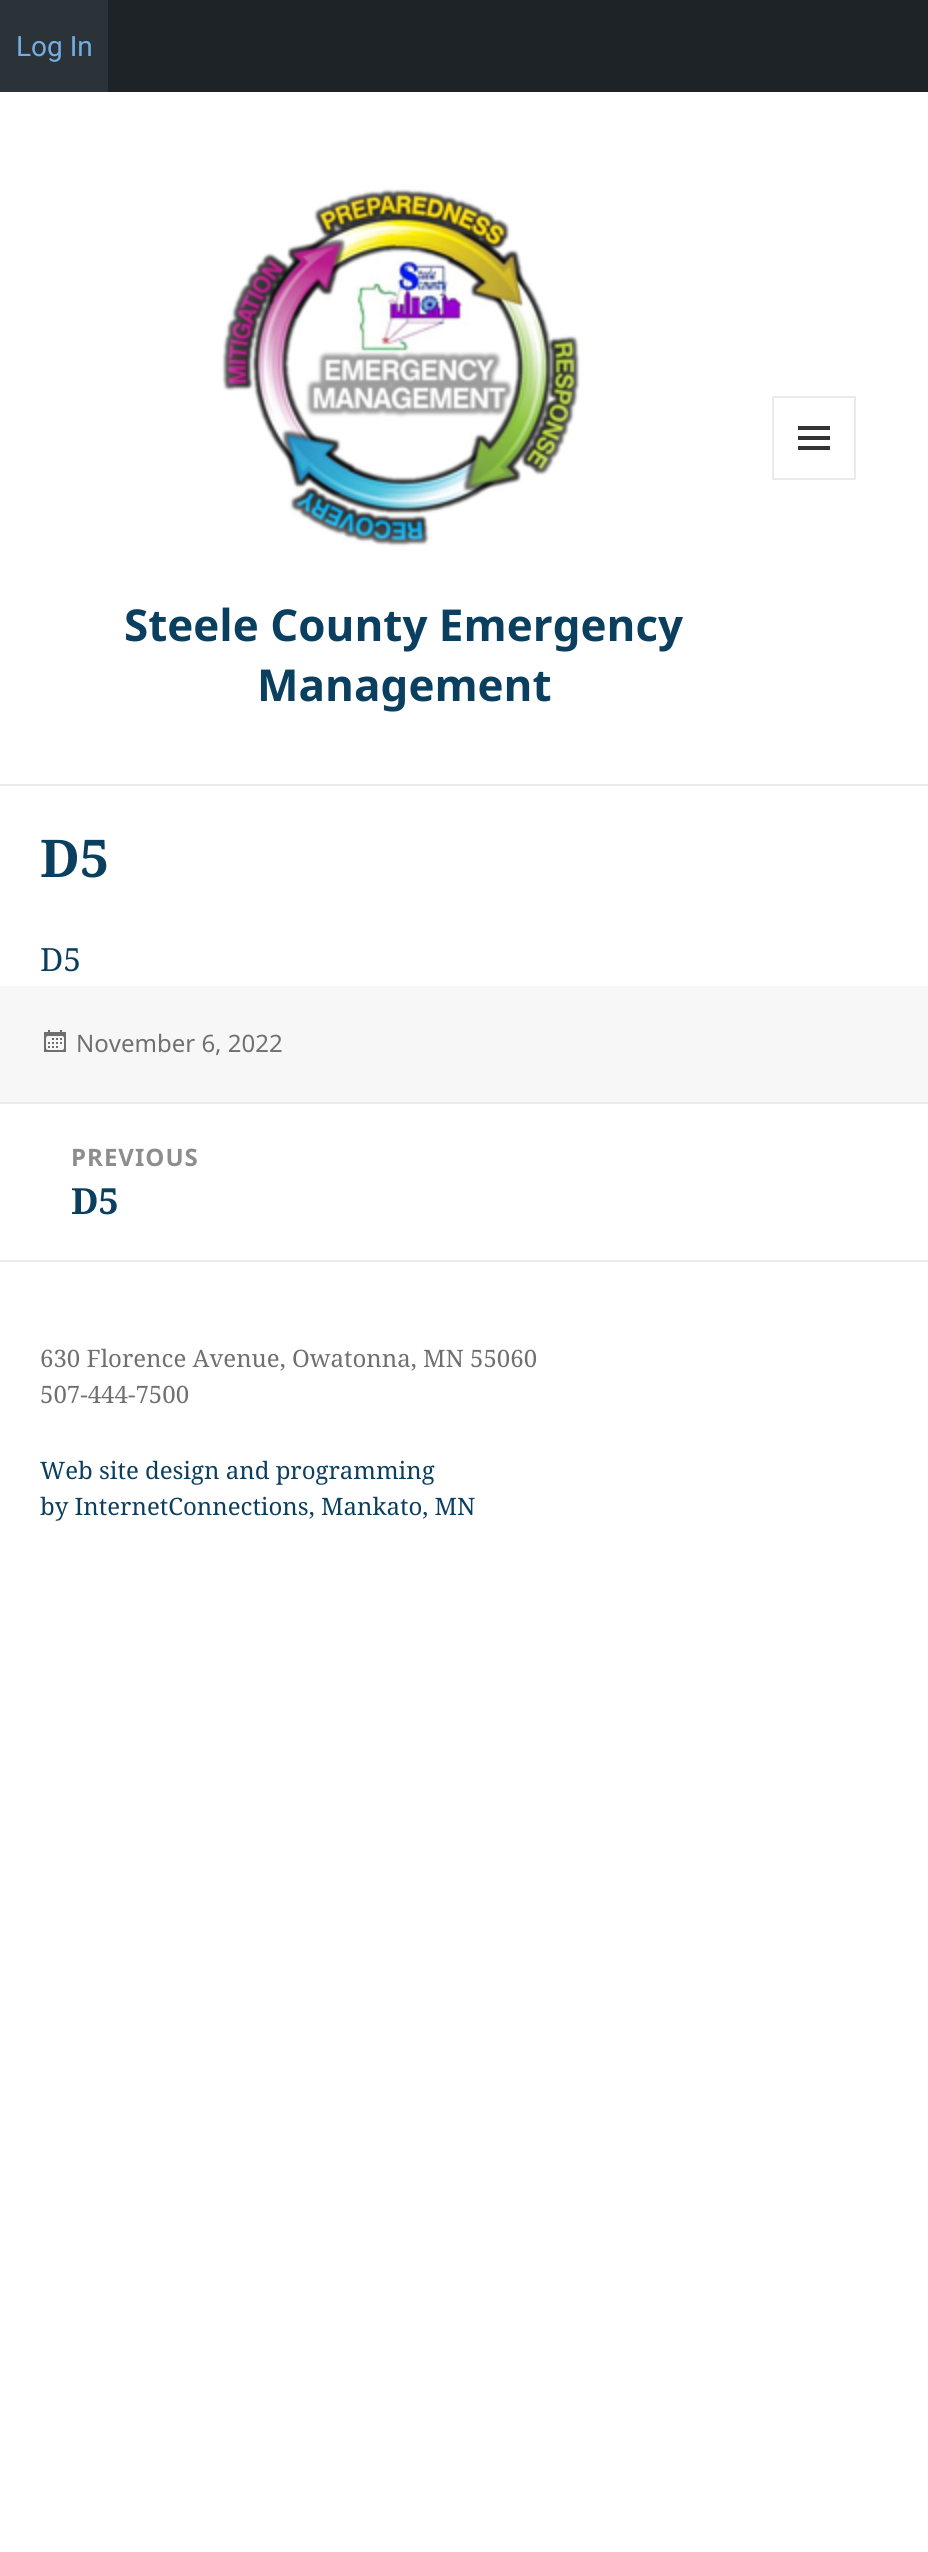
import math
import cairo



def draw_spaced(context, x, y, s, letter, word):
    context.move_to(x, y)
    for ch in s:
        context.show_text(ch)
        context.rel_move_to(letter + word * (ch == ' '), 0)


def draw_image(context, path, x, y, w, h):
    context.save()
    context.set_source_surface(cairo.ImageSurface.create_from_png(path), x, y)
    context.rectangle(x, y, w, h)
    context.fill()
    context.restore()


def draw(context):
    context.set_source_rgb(1, 1, 1)
    context.paint()
    context.set_source_rgb(29 / 255, 35 / 255, 39 / 255)
    context.rectangle(108, 0, 820, 92)
    context.fill()
    context.set_source_rgb(44 / 255, 51 / 255, 56 / 255)
    context.rectangle(0, 0, 108, 92)
    context.fill()
    context.set_source_rgb(235 / 255, 235 / 255, 235 / 255)
    context.rectangle(0, 784, 928, 2)
    context.fill()
    draw_image(context, "images/1.png", 222, 185, 362, 362)
    context.rectangle(773, 397, 82, 82)
    context.stroke()
    draw_image(context, "images/2.png", 798, 426, 32, 24)
    context.set_source_rgb(247 / 255, 247 / 255, 247 / 255)
    context.rectangle(0, 986, 928, 116)
    context.fill()
    draw_image(context, "images/3.png", 44, 1030, 22, 22)
    context.set_source_rgb(235 / 255, 235 / 255, 235 / 255)
    context.rectangle(0, 1102, 928, 2)
    context.fill()
    context.rectangle(0, 1260, 928, 2)
    context.fill()
    context.select_font_face("Roboto")
    context.set_font_size(28)
    context.set_source_rgb(114 / 255, 174 / 255, 230 / 255)
    context.move_to(16, 56)
    context.show_text("Log In")
    context.select_font_face("Noto Sans", cairo.FontSlant.NORMAL, cairo.FontWeight.BOLD)
    context.set_font_size(44)
    context.set_source_rgb(11 / 255, 63 / 255, 96 / 255)
    context.move_to(124, 641)
    context.show_text("Steele County Emergency")
    context.move_to(257, 701)
    context.show_text("Management")
    context.select_font_face("Noto Serif", cairo.FontSlant.NORMAL, cairo.FontWeight.BOLD)
    context.set_font_size(52)
    context.move_to(40, 877)
    context.show_text("D5")
    context.select_font_face("Noto Serif")
    context.set_font_size(32)
    context.move_to(40, 971)
    context.show_text("D5")
    context.select_font_face("Noto Sans")
    context.set_font_size(24)
    context.set_source_rgb(112 / 255, 112 / 255, 112 / 255)
    context.move_to(76, 1052)
    context.show_text("November 6, 2022")
    context.select_font_face("Noto Sans", cairo.FontSlant.NORMAL, cairo.FontWeight.BOLD)
    context.set_source_rgb(141 / 255, 141 / 255, 141 / 255)
    draw_spaced(context, 71, 1166, "PREVIOUS", 1, 0)
    context.select_font_face("Noto Serif", cairo.FontSlant.NORMAL, cairo.FontWeight.BOLD)
    context.set_font_size(36)
    context.set_source_rgb(11 / 255, 63 / 255, 96 / 255)
    context.move_to(71, 1214)
    context.show_text("D5")
    context.select_font_face("Noto Serif")
    context.set_font_size(24)
    context.set_source_rgb(112 / 255, 112 / 255, 112 / 255)
    context.move_to(40, 1367)
    context.show_text("630 Florence Avenue, Owatonna, MN 55060")
    context.move_to(40, 1403)
    context.show_text("507-444-7500")
    context.set_source_rgb(11 / 255, 63 / 255, 96 / 255)
    context.move_to(40, 1479)
    context.show_text("Web site design and programming")
    context.move_to(40, 1515)
    context.show_text("by InternetConnections, Mankato, MN")


surface = cairo.ImageSurface(cairo.Format.RGB24, 928, 2552)
context = cairo.Context(surface)
options = cairo.FontOptions()
options.set_hint_metrics(cairo.HintMetrics.OFF)
options.set_hint_style(cairo.HintStyle.NONE)
context.set_font_options(options)
context.set_miter_limit(4)
draw(context)
surface.write_to_png("out.png")
